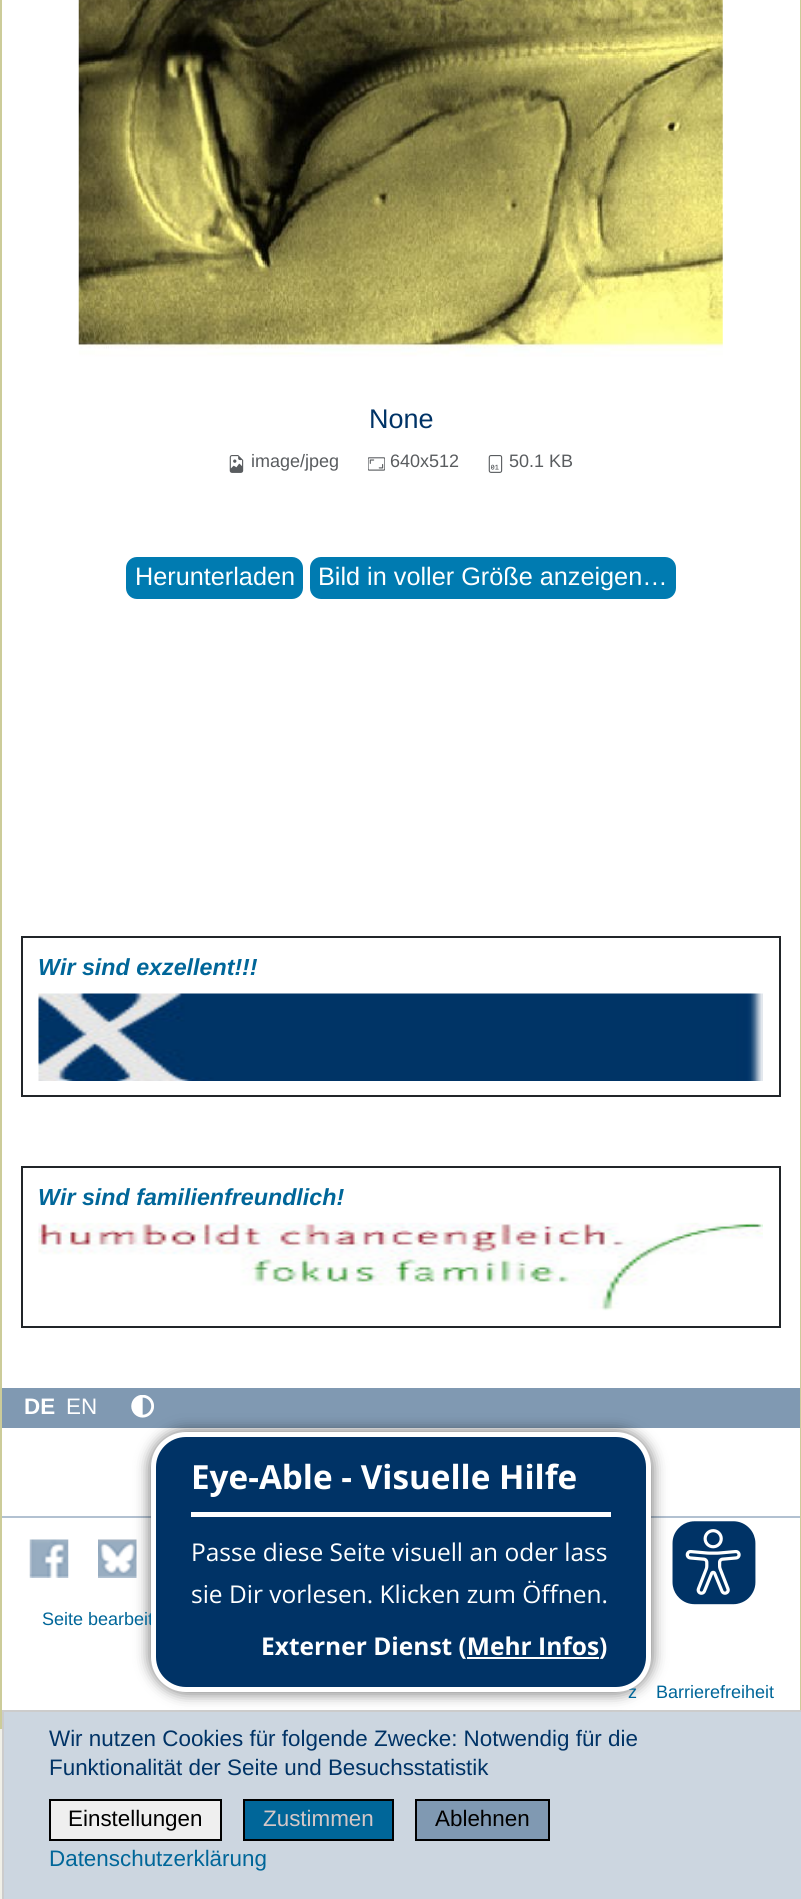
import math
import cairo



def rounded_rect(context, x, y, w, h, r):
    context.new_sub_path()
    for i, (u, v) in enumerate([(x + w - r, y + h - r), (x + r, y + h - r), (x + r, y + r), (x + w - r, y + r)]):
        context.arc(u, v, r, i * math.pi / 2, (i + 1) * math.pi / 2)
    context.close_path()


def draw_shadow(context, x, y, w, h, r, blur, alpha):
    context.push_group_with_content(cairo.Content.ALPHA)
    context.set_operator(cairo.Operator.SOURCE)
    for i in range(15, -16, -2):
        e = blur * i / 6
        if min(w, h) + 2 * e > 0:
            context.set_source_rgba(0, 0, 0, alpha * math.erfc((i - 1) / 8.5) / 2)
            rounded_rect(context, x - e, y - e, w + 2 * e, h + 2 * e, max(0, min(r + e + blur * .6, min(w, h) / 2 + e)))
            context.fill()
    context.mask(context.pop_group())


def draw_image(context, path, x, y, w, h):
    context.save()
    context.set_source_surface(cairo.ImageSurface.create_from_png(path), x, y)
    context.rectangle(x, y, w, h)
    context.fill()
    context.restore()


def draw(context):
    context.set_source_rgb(240 / 255, 240 / 255, 232 / 255)
    context.paint()
    context.set_source_rgb(1, 1, 1)
    context.rectangle(2, 0, 798, 1710)
    context.fill()
    context.set_source_rgb(204 / 255, 204 / 255, 153 / 255)
    context.rectangle(800, 0, 1, 1710)
    context.fill()
    context.rectangle(0, 0, 2, 1729)
    context.fill()
    draw_image(context, "images/1.png", 78, 0, 645, 357)
    draw_image(context, "images/2.png", 229, 455, 15, 18)
    draw_image(context, "images/3.png", 368, 457, 17, 14)
    draw_image(context, "images/4.png", 488, 455, 15, 18)
    context.set_source_rgb(0, 123 / 255, 177 / 255)
    rounded_rect(context, 126, 557, 177, 42, 11)
    context.fill()
    rounded_rect(context, 310, 557, 366, 42, 11)
    context.fill()
    context.rectangle(22, 937, 758, 159)
    context.set_source_rgb(33 / 255, 37 / 255, 41 / 255)
    context.stroke()
    draw_image(context, "images/5.png", 38, 993, 725, 88)
    context.rectangle(22, 1167, 758, 160)
    context.stroke()
    draw_image(context, "images/6.png", 38, 1222, 725, 89)
    context.set_source_rgb(128 / 255, 153 / 255, 178 / 255)
    context.rectangle(2, 1388, 798, 40)
    context.fill()
    draw_image(context, "images/7.png", 131, 1395, 23, 23)
    context.set_source_rgb(178 / 255, 193 / 255, 209 / 255)
    context.rectangle(2, 1516, 798, 2)
    context.fill()
    draw_image(context, "images/10.png", 98, 1539, 39, 39)
    context.set_source_rgb(204 / 255, 214 / 255, 224 / 255)
    context.rectangle(3, 1711, 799, 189)
    context.fill_preserve()
    context.set_source_rgb(204 / 255, 204 / 255, 204 / 255)
    context.stroke()
    context.set_source_rgb(0, 0, 0)
    draw_shadow(context, 149, 1430, 504, 264, 37, 7, 0.5)
    draw_image(context, "images/8.png", 672, 1521, 84, 84)
    draw_image(context, "images/9.png", 29, 1539, 40, 39)
    context.set_source_rgb(239 / 255, 239 / 255, 239 / 255)
    context.rectangle(50, 1800, 171, 40)
    context.fill_preserve()
    context.set_source_rgb(0, 0, 0)
    context.stroke()
    context.set_source_rgb(0, 102 / 255, 153 / 255)
    context.rectangle(244, 1800, 149, 40)
    context.fill_preserve()
    context.set_source_rgb(0, 0, 0)
    context.stroke()
    context.set_source_rgb(128 / 255, 153 / 255, 178 / 255)
    context.rectangle(416, 1800, 133, 40)
    context.fill_preserve()
    context.set_source_rgb(0, 0, 0)
    context.stroke()
    context.select_font_face("Liberation Sans")
    context.set_font_size(27)
    context.set_source_rgb(0, 51 / 255, 102 / 255)
    context.move_to(369, 428)
    context.show_text("None")
    context.set_font_size(18)
    context.set_source_rgb(89 / 255, 92 / 255, 95 / 255)
    context.move_to(251, 467)
    context.show_text("image/jpeg")
    context.move_to(390, 467)
    context.show_text("640x512")
    context.move_to(509, 467)
    context.show_text("50.1 KB")
    context.set_font_size(25.25)
    context.set_source_rgb(1, 1, 1)
    context.move_to(135, 585)
    context.show_text("Herunterladen")
    context.move_to(318, 585)
    context.show_text("Bild in voller Größe anzeigen…")
    context.select_font_face("Liberation Sans", cairo.FontSlant.ITALIC, cairo.FontWeight.BOLD)
    context.set_font_size(23.25)
    context.set_source_rgb(0, 102 / 255, 153 / 255)
    context.move_to(38, 975)
    context.show_text("Wir sind exzellent!!!")
    context.move_to(38, 1205)
    context.show_text("Wir sind familienfreundlich!")
    context.select_font_face("Liberation Sans", cairo.FontSlant.NORMAL, cairo.FontWeight.BOLD)
    context.set_font_size(22.4)
    context.set_source_rgb(1, 1, 1)
    context.move_to(24, 1414)
    context.show_text("DE")
    context.select_font_face("Liberation Sans")
    context.move_to(66, 1414)
    context.show_text("EN")
    context.set_font_size(18)
    context.set_source_rgb(0, 102 / 255, 153 / 255)
    context.move_to(42, 1625)
    context.show_text("Seite bearbeit")
    context.move_to(628, 1698)
    context.show_text("z")
    context.set_source_rgb(0, 51 / 255, 102 / 255)
    rounded_rect(context, 153.5, 1434.5, 495, 255, 32.5)
    context.fill_preserve()
    context.set_source_rgb(1, 1, 1)
    context.set_line_width(5)
    context.stroke()
    context.rectangle(467, 1657, 132, 2)
    context.fill()
    context.select_font_face("Open Sans", cairo.FontSlant.NORMAL, cairo.FontWeight.BOLD)
    context.set_font_size(24.5)
    context.move_to(261, 1655)
    context.show_text("Externer Dienst (Mehr Infos)")
    context.select_font_face("Open Sans")
    context.move_to(191, 1603)
    context.show_text("sie Dir vorlesen. Klicken zum Öffnen.")
    context.move_to(191, 1561)
    context.show_text("Passe diese Seite visuell an oder lass")
    context.select_font_face("Open Sans", cairo.FontSlant.NORMAL, cairo.FontWeight.BOLD)
    context.set_font_size(33.25)
    context.move_to(191, 1489)
    context.show_text("Eye-Able - Visuelle Hilfe")
    context.rectangle(191, 1512, 420, 5)
    context.fill()
    context.select_font_face("Liberation Sans")
    context.set_font_size(18)
    context.set_source_rgb(0, 102 / 255, 153 / 255)
    context.move_to(656, 1698)
    context.show_text("Barrierefreiheit")
    context.set_font_size(22.4)
    context.set_source_rgb(0, 51 / 255, 102 / 255)
    context.move_to(49, 1746)
    context.show_text("Wir nutzen Cookies für folgende Zwecke: Notwendig für die")
    context.move_to(49, 1775)
    context.show_text("Funktionalität der Seite und Besuchsstatistik")
    context.set_source_rgb(0, 0, 0)
    context.move_to(68, 1826)
    context.show_text("Einstellungen")
    context.set_source_rgb(213 / 255, 199 / 255, 199 / 255)
    context.move_to(263, 1826)
    context.show_text("Zustimmen")
    context.set_source_rgb(0, 0, 0)
    context.move_to(435, 1826)
    context.show_text("Ablehnen")
    context.set_source_rgb(0, 102 / 255, 153 / 255)
    context.move_to(49, 1866)
    context.show_text("Datenschutzerklärung")


surface = cairo.ImageSurface(cairo.Format.RGB24, 801, 1899)
context = cairo.Context(surface)
options = cairo.FontOptions()
options.set_hint_metrics(cairo.HintMetrics.OFF)
options.set_hint_style(cairo.HintStyle.NONE)
context.set_font_options(options)
context.set_miter_limit(4)
draw(context)
surface.write_to_png("out.png")
